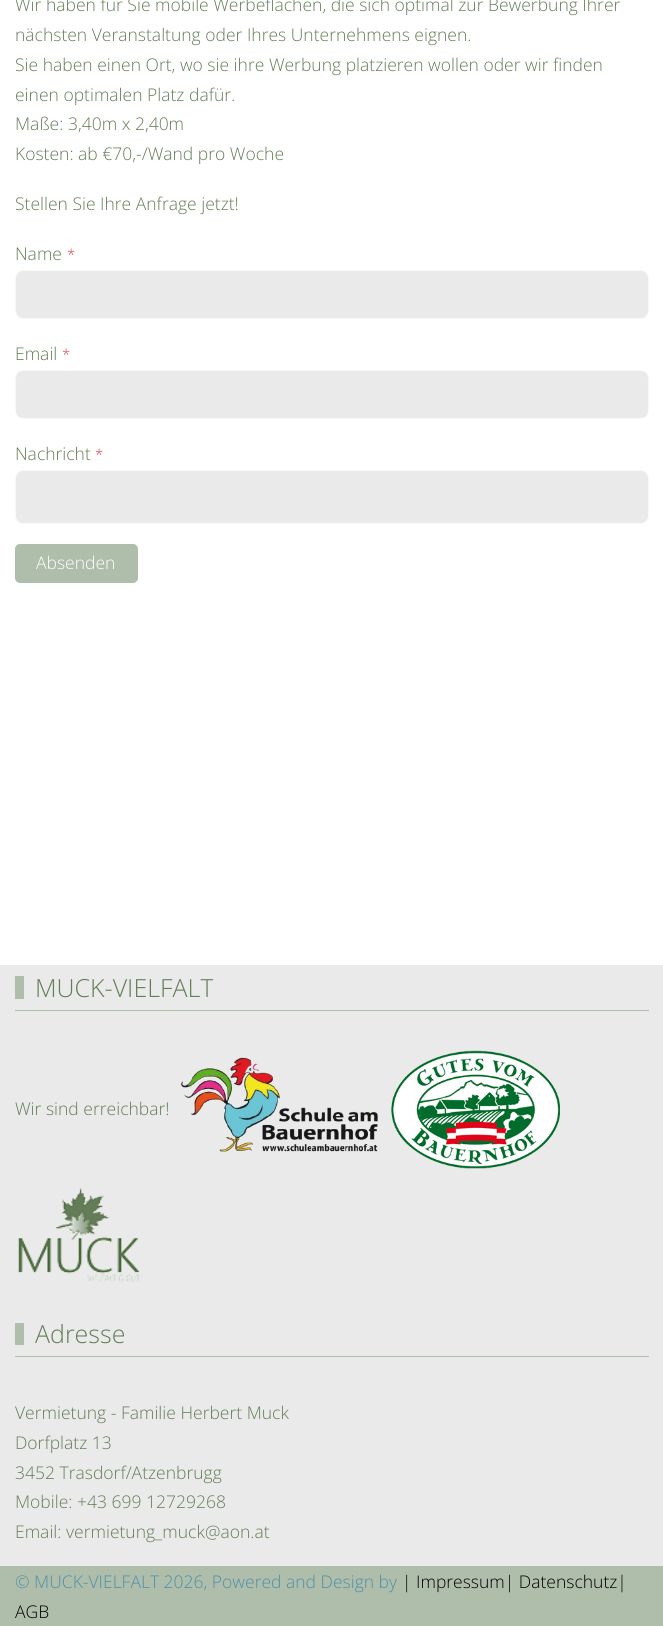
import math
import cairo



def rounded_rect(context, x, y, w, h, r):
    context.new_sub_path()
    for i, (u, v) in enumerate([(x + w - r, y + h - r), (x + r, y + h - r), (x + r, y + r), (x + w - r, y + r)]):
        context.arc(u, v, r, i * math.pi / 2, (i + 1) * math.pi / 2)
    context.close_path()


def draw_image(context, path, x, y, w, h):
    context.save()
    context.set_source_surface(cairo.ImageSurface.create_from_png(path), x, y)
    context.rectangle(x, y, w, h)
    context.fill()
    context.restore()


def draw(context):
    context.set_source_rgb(234 / 255, 234 / 255, 234 / 255)
    context.paint()
    context.set_source_rgb(1, 1, 1)
    context.rectangle(0, 0, 663, 965)
    context.fill()
    context.set_source_rgb(234 / 255, 234 / 255, 234 / 255)
    rounded_rect(context, 16, 271, 632, 47, 6)
    context.fill()
    rounded_rect(context, 15.5, 270.5, 633, 48, 7.5)
    context.set_source_rgb(248 / 255, 249 / 255, 250 / 255)
    context.set_line_width(1)
    context.stroke()
    context.set_source_rgb(234 / 255, 234 / 255, 234 / 255)
    rounded_rect(context, 16, 371, 632, 47, 6)
    context.fill()
    rounded_rect(context, 15.5, 370.5, 633, 48, 7.5)
    context.set_source_rgb(248 / 255, 249 / 255, 250 / 255)
    context.stroke()
    context.set_source_rgb(234 / 255, 234 / 255, 234 / 255)
    rounded_rect(context, 16, 471, 632, 52, 6)
    context.fill()
    rounded_rect(context, 15.5, 470.5, 633, 53, 7.5)
    context.set_source_rgb(248 / 255, 249 / 255, 250 / 255)
    context.stroke()
    context.set_source_rgb(175 / 255, 190 / 255, 170 / 255)
    rounded_rect(context, 15.5, 544.5, 122, 38, 4.5)
    context.fill_preserve()
    context.stroke()
    context.rectangle(15, 1010, 634, 1)
    context.fill()
    context.rectangle(15, 976, 9, 23)
    context.fill()
    draw_image(context, "images/1.png", 181, 1057, 197, 95)
    draw_image(context, "images/2.png", 391, 1050, 169, 119)
    draw_image(context, "images/3.png", 18, 1188, 122, 94)
    context.rectangle(15, 1356, 634, 1)
    context.fill()
    context.rectangle(15, 1323, 9, 22)
    context.fill()
    context.rectangle(0, 1566, 663, 60)
    context.fill()
    context.select_font_face("Open Sans Light")
    context.set_font_size(17.5)
    context.set_source_rgb(100 / 255, 125 / 255, 88 / 255)
    context.move_to(15, 11)
    context.show_text("Wir haben für Sie mobile Werbeflächen, die sich optimal zur Bewerbung Ihrer")
    context.move_to(15, 41)
    context.show_text("nächsten Veranstaltung oder Ihres Unternehmens eignen.")
    context.move_to(15, 71)
    context.show_text("Sie haben einen Ort, wo sie ihre Werbung platzieren wollen oder wir finden")
    context.move_to(15, 101)
    context.show_text("einen optimalen Platz dafür.")
    context.move_to(15, 130)
    context.show_text("Maße: 3,40m x 2,40m")
    context.move_to(15, 160)
    context.show_text("Kosten: ab €70,-/Wand pro Woche")
    context.move_to(15, 210)
    context.show_text("Stellen Sie Ihre Anfrage jetzt!")
    context.move_to(15, 260)
    context.show_text("Name")
    context.set_font_size(15)
    context.set_source_rgb(220 / 255, 53 / 255, 69 / 255)
    context.move_to(67, 260)
    context.show_text("*")
    context.set_font_size(17.5)
    context.set_source_rgb(100 / 255, 125 / 255, 88 / 255)
    context.move_to(15, 360)
    context.show_text("Email")
    context.set_font_size(15)
    context.set_source_rgb(220 / 255, 53 / 255, 69 / 255)
    context.move_to(62, 360)
    context.show_text("*")
    context.set_font_size(17.5)
    context.set_source_rgb(100 / 255, 125 / 255, 88 / 255)
    context.move_to(15, 460)
    context.show_text("Nachricht")
    context.set_font_size(15)
    context.set_source_rgb(220 / 255, 53 / 255, 69 / 255)
    context.move_to(95, 460)
    context.show_text("*")
    context.set_font_size(17.5)
    context.set_source_rgb(1, 1, 1)
    context.move_to(36, 569)
    context.show_text("Absenden")
    context.set_font_size(25)
    context.set_source_rgb(100 / 255, 125 / 255, 88 / 255)
    context.move_to(35, 997)
    context.show_text("MUCK-VIELFALT")
    context.set_font_size(17.5)
    context.move_to(15, 1115)
    context.show_text("Wir sind erreichbar!")
    context.set_font_size(25)
    context.move_to(35, 1343)
    context.show_text("Adresse")
    context.set_font_size(17.5)
    context.move_to(15, 1419)
    context.show_text("Vermietung - Familie Herbert Muck")
    context.move_to(15, 1449)
    context.show_text("Dorfplatz 13")
    context.move_to(15, 1479)
    context.show_text("3452 Trasdorf/Atzenbrugg")
    context.move_to(15, 1508)
    context.show_text("Mobile: +43 699 12729268")
    context.move_to(15, 1538)
    context.show_text("Email: vermietung_muck@aon.at")
    context.set_source_rgb(79 / 255, 143 / 255, 170 / 255)
    context.move_to(15, 1588)
    context.show_text("© MUCK-VIELFALT 2026, Powered and Design by")
    context.set_source_rgb(0, 0, 0)
    context.move_to(402, 1588)
    context.show_text("| Impressum| Datenschutz|")
    context.move_to(15, 1618)
    context.show_text("AGB")


surface = cairo.ImageSurface(cairo.Format.RGB24, 663, 1626)
context = cairo.Context(surface)
options = cairo.FontOptions()
options.set_hint_metrics(cairo.HintMetrics.OFF)
options.set_hint_style(cairo.HintStyle.NONE)
context.set_font_options(options)
context.set_miter_limit(4)
draw(context)
surface.write_to_png("out.png")
